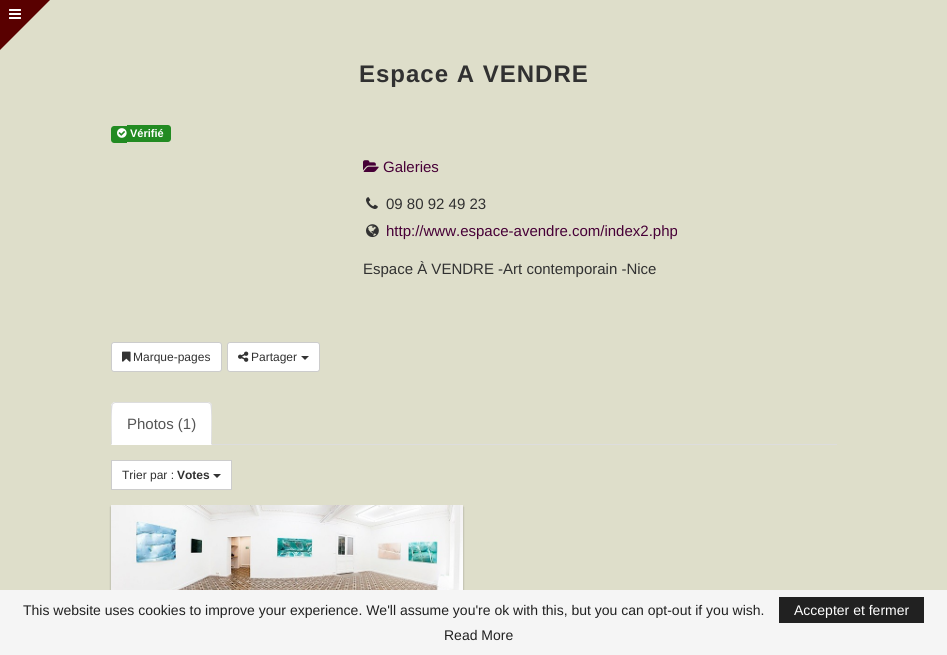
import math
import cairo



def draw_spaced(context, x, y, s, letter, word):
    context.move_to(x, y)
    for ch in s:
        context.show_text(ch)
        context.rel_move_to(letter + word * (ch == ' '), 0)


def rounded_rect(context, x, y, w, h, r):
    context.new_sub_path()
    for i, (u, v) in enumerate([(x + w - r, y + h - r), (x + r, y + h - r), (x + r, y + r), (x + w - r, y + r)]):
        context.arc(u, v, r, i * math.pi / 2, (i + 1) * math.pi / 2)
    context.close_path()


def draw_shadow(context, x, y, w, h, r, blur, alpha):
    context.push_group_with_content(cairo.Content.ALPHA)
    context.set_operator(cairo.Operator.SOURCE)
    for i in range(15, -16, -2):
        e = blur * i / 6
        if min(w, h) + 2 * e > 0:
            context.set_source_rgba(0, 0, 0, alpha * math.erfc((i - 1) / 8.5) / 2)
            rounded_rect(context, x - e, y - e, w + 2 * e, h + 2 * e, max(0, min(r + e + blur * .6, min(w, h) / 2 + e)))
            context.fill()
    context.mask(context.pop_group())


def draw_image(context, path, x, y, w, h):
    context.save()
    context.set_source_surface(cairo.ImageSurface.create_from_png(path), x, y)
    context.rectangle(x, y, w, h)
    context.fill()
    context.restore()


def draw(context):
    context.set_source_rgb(222 / 255, 222 / 255, 202 / 255)
    context.paint()
    context.set_source_rgb(89 / 255, 0, 0)
    context.new_path()
    context.move_to(0, 0)
    context.line_to(50, 0)
    context.line_to(0, 50)
    context.close_path()
    context.fill()
    draw_image(context, "images/1.png", 9, 9, 12, 10)
    context.set_source_rgb(34 / 255, 139 / 255, 34 / 255)
    context.new_path()
    context.move_to(114, 126)
    context.line_to(127, 126)
    context.line_to(127, 143)
    context.line_to(114, 143)
    context.curve_to(112.5, 143, 111, 141.5, 111, 140)
    context.line_to(111, 129)
    context.curve_to(111, 127.5, 112.5, 126, 114, 126)
    context.close_path()
    context.fill()
    context.new_path()
    context.move_to(127, 125)
    context.line_to(168, 125)
    context.curve_to(169.5, 125, 171, 126.5, 171, 128)
    context.line_to(171, 139)
    context.curve_to(171, 140.5, 169.5, 142, 168, 142)
    context.line_to(127, 142)
    context.close_path()
    context.fill()
    draw_image(context, "images/2.png", 117, 128, 10, 10)
    draw_image(context, "images/3.png", 363, 160, 16, 12)
    draw_image(context, "images/4.png", 366, 197, 12, 12)
    draw_image(context, "images/5.png", 366, 224, 13, 14)
    context.set_source_rgb(1, 1, 1)
    rounded_rect(context, 111.5, 342.5, 110, 29, 2.5)
    context.fill_preserve()
    context.set_source_rgb(204 / 255, 204 / 255, 204 / 255)
    context.set_line_width(1)
    context.stroke()
    draw_image(context, "images/6.png", 122, 351, 9, 11)
    context.set_source_rgb(1, 1, 1)
    rounded_rect(context, 227.5, 342.5, 92, 29, 2.5)
    context.fill_preserve()
    context.set_source_rgb(204 / 255, 204 / 255, 204 / 255)
    context.stroke()
    draw_image(context, "images/7.png", 238, 351, 11, 11)
    context.set_source_rgb(51 / 255, 51 / 255, 51 / 255)
    context.new_path()
    context.move_to(301, 356)
    context.line_to(309, 356)
    context.line_to(305, 360)
    context.close_path()
    context.fill()
    context.set_source_rgb(221 / 255, 221 / 255, 221 / 255)
    context.rectangle(212, 444, 625, 1)
    context.fill()
    context.set_source_rgb(1, 1, 1)
    context.new_path()
    context.move_to(115, 402)
    context.line_to(208, 402)
    context.curve_to(210, 402, 212, 404, 212, 406)
    context.line_to(212, 445)
    context.line_to(111, 445)
    context.line_to(111, 406)
    context.curve_to(111, 404, 113, 402, 115, 402)
    context.close_path()
    context.fill()
    context.set_source_rgb(221 / 255, 221 / 255, 221 / 255)
    context.new_path()
    context.move_to(115, 402)
    context.line_to(112, 403)
    context.line_to(113, 404)
    context.line_to(115, 403)
    context.line_to(208, 403)
    context.line_to(210, 404)
    context.line_to(211, 403)
    context.line_to(208, 402)
    context.close_path()
    context.fill()
    context.new_path()
    context.move_to(212, 445)
    context.line_to(212, 406)
    context.curve_to(212, 405, 212, 404, 211, 403)
    context.line_to(210, 404)
    context.curve_to(212, 406, 211, 439, 211, 444)
    context.close_path()
    context.fill()
    context.new_path()
    context.move_to(111, 445)
    context.line_to(112, 444)
    context.curve_to(112, 439, 111, 406, 113, 404)
    context.line_to(112, 403)
    context.line_to(111, 406)
    context.close_path()
    context.fill()
    context.set_source_rgb(1, 1, 1)
    context.rectangle(111.5, 460.5, 120, 29)
    context.fill_preserve()
    context.set_source_rgb(204 / 255, 204 / 255, 204 / 255)
    context.stroke()
    context.set_source_rgb(51 / 255, 51 / 255, 51 / 255)
    context.new_path()
    context.move_to(213, 474)
    context.line_to(221, 474)
    context.line_to(217, 478)
    context.close_path()
    context.fill()
    context.set_source_rgb(85 / 255, 85 / 255, 85 / 255)
    draw_shadow(context, 111, 507, 352, 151, 0, 1, 0.5)
    draw_image(context, "images/8.png", 111, 505, 352, 85)
    context.set_source_rgb(245 / 255, 245 / 255, 245 / 255)
    context.rectangle(0, 590, 947, 65)
    context.fill()
    context.set_source_rgb(33 / 255, 33 / 255, 33 / 255)
    context.rectangle(779, 597, 145, 26)
    context.fill()
    context.select_font_face("Liberation Sans", cairo.FontSlant.NORMAL, cairo.FontWeight.BOLD)
    context.set_font_size(24)
    context.set_source_rgb(49 / 255, 49 / 255, 49 / 255)
    draw_spaced(context, 359, 82, "Espace A VENDRE", 1, 0)
    context.set_font_size(11)
    context.set_source_rgb(1, 1, 1)
    context.move_to(130, 137)
    context.show_text("Vérifié")
    context.select_font_face("Liberation Sans")
    context.set_font_size(15)
    context.set_source_rgb(71 / 255, 0, 55 / 255)
    context.move_to(383, 172)
    context.show_text("Galeries")
    context.set_source_rgb(49 / 255, 49 / 255, 49 / 255)
    context.move_to(386, 209)
    context.show_text("09 80 92 49 23")
    context.set_source_rgb(71 / 255, 0, 55 / 255)
    context.move_to(386, 236)
    context.show_text("http://www.espace-avendre.com/index2.php")
    context.set_source_rgb(49 / 255, 49 / 255, 49 / 255)
    context.move_to(363, 274)
    context.show_text("Espace À VENDRE -Art contemporain -Nice")
    context.set_font_size(12)
    context.move_to(133, 361)
    context.show_text("Marque-pages")
    context.move_to(251, 361)
    context.show_text("Partager")
    context.set_font_size(15)
    context.set_source_rgb(85 / 255, 85 / 255, 85 / 255)
    context.move_to(127, 429)
    context.show_text("Photos (1)")
    context.set_font_size(12)
    context.set_source_rgb(49 / 255, 49 / 255, 49 / 255)
    context.move_to(122, 479)
    context.show_text("Trier par :")
    context.select_font_face("Liberation Sans", cairo.FontSlant.NORMAL, cairo.FontWeight.BOLD)
    context.move_to(177, 479)
    context.show_text("Votes")
    context.select_font_face("Liberation Sans")
    context.set_font_size(14)
    context.set_source_rgb(33 / 255, 33 / 255, 33 / 255)
    context.move_to(23, 615)
    context.show_text("This website uses cookies to improve your experience. We'll assume you're ok with this, but you can opt-out if you wish.")
    context.set_source_rgb(1, 1, 1)
    context.move_to(794, 615)
    context.show_text("Accepter et fermer")
    context.set_source_rgb(33 / 255, 33 / 255, 33 / 255)
    context.move_to(444, 640)
    context.show_text("Read More")


surface = cairo.ImageSurface(cairo.Format.RGB24, 947, 655)
context = cairo.Context(surface)
options = cairo.FontOptions()
options.set_hint_metrics(cairo.HintMetrics.OFF)
options.set_hint_style(cairo.HintStyle.NONE)
context.set_font_options(options)
context.set_miter_limit(4)
draw(context)
surface.write_to_png("out.png")
